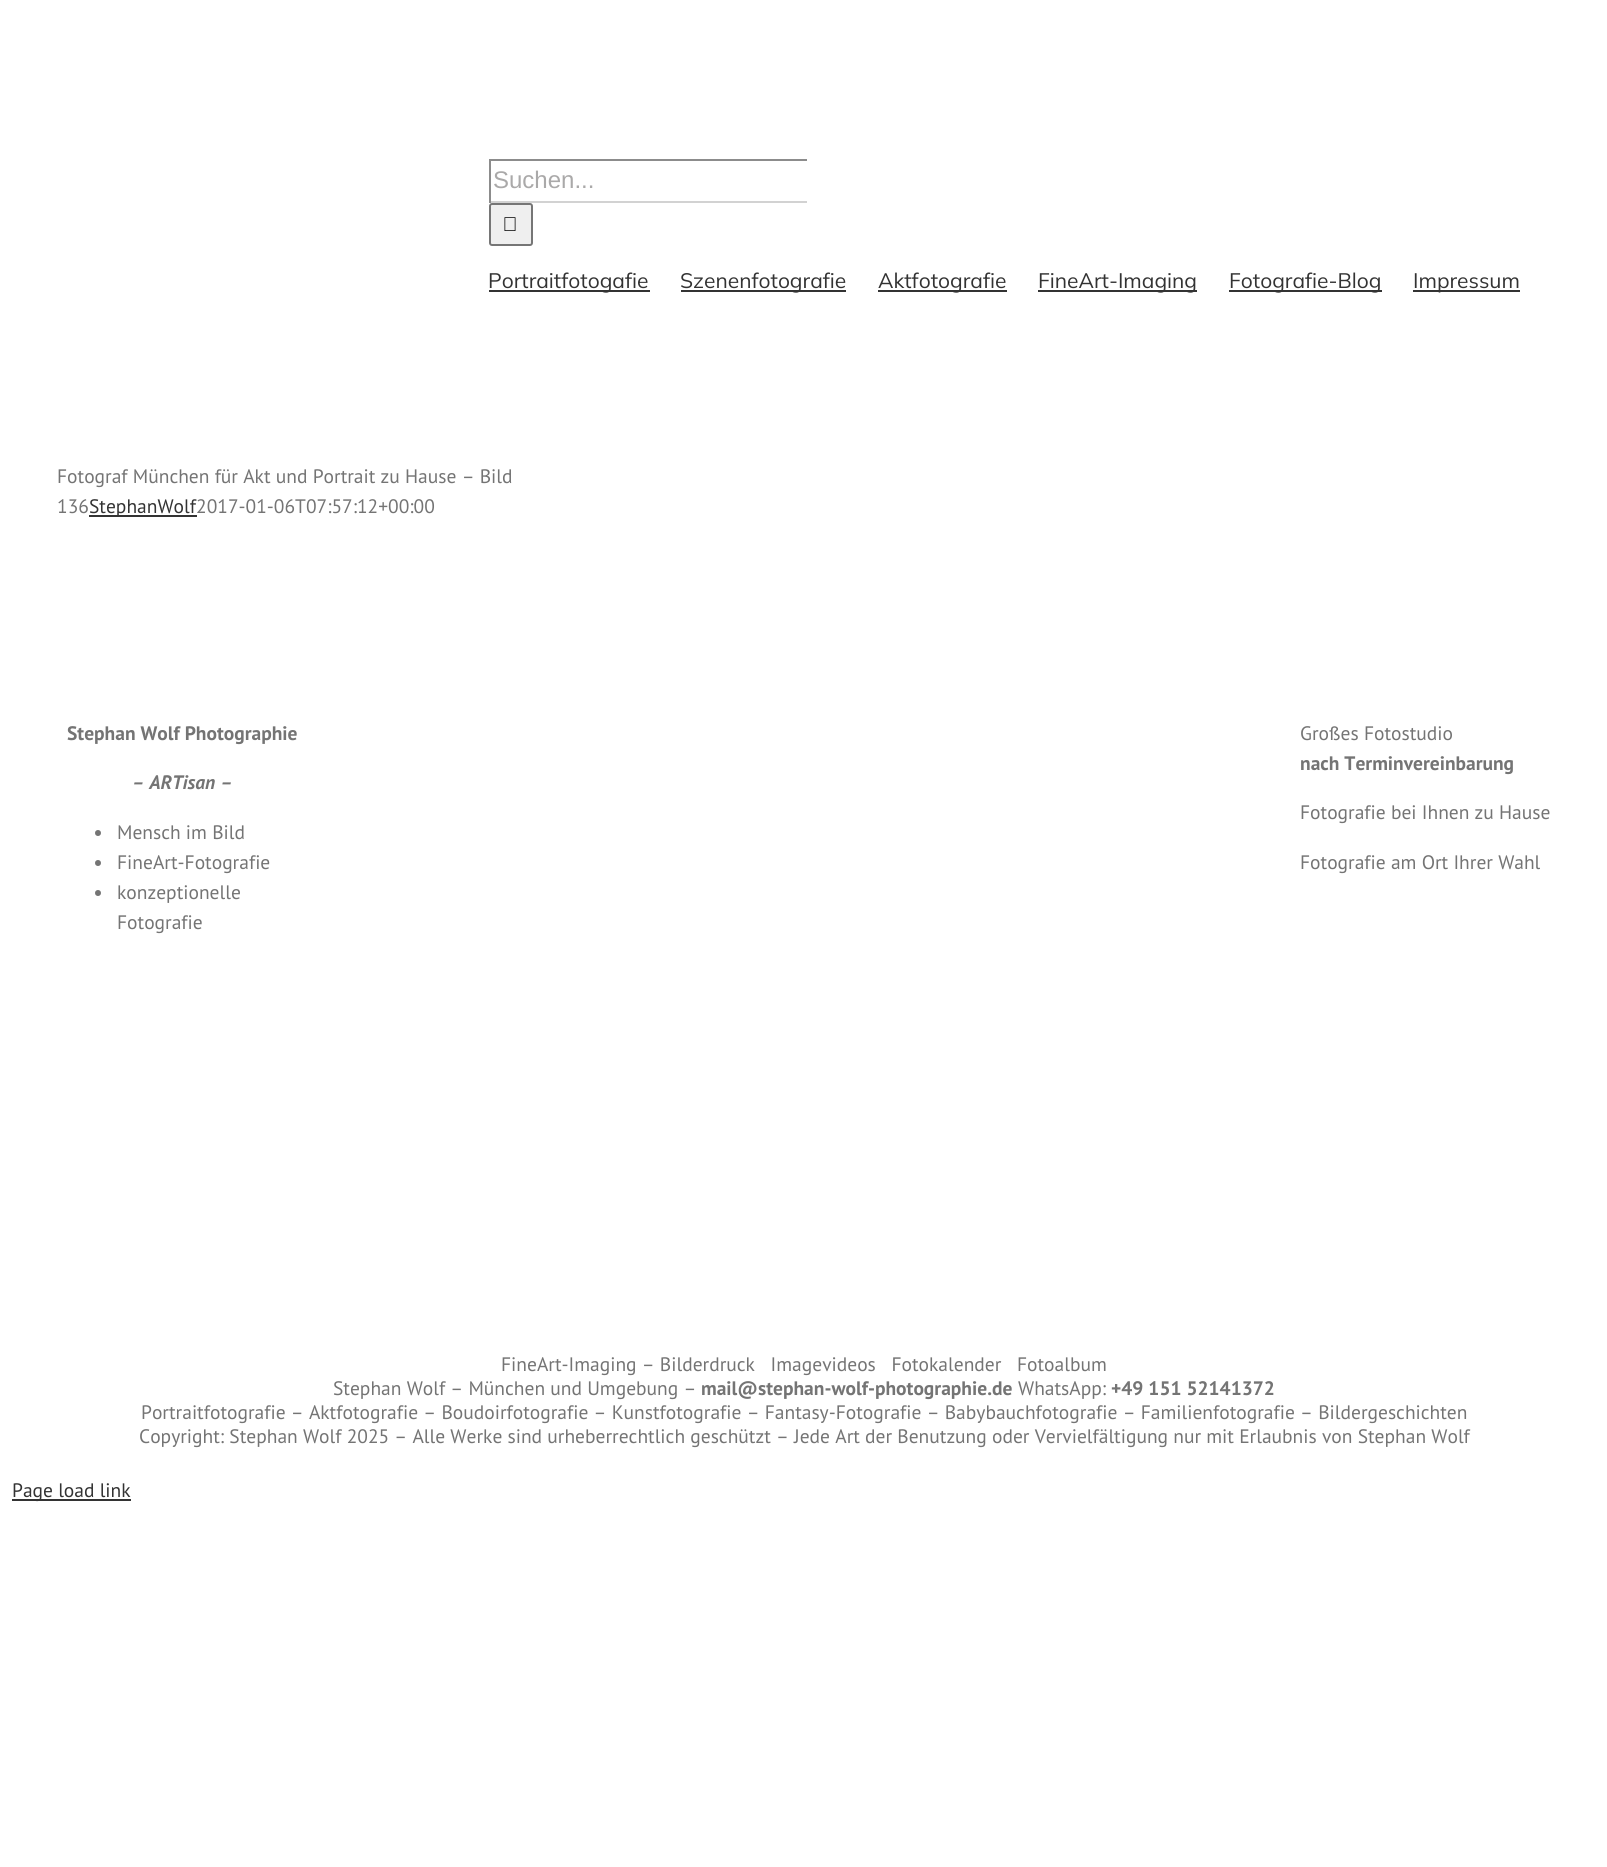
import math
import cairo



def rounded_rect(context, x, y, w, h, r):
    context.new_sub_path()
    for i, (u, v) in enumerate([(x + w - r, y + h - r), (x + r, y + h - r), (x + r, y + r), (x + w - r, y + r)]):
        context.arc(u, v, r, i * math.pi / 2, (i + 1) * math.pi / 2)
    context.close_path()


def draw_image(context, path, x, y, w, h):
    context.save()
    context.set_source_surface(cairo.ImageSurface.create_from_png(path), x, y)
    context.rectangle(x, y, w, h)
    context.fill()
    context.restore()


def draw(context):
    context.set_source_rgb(1, 1, 1)
    context.paint()
    context.set_source_rgb(140 / 255, 140 / 255, 140 / 255)
    context.rectangle(489, 159, 318, 2)
    context.fill()
    context.set_source_rgb(210 / 255, 210 / 255, 210 / 255)
    context.rectangle(489, 201, 318, 2)
    context.fill()
    context.set_source_rgb(140 / 255, 140 / 255, 140 / 255)
    context.rectangle(489, 159, 2, 44)
    context.fill()
    context.set_source_rgb(239 / 255, 239 / 255, 239 / 255)
    rounded_rect(context, 490, 204, 42, 41, 2)
    context.fill_preserve()
    context.set_source_rgb(118 / 255, 118 / 255, 118 / 255)
    context.stroke()
    draw_image(context, "images/1.png", 504, 217, 12, 14)
    context.set_source_rgb(51 / 255, 51 / 255, 51 / 255)
    context.rectangle(489, 290, 161, 2)
    context.fill()
    context.rectangle(681, 290, 165, 2)
    context.fill()
    context.rectangle(878, 290, 129, 2)
    context.fill()
    context.rectangle(1038, 290, 159, 2)
    context.fill()
    context.rectangle(1229, 290, 153, 2)
    context.fill()
    context.rectangle(1413, 290, 107, 2)
    context.fill()
    context.rectangle(89, 515, 108, 2)
    context.fill()
    context.set_source_rgb(116 / 255, 116 / 255, 116 / 255)
    context.arc(98, 833, 3, 0, 2 * math.pi)
    context.fill()
    context.arc(98, 863, 3, 0, 2 * math.pi)
    context.fill()
    context.arc(98, 893, 3, 0, 2 * math.pi)
    context.fill()
    context.set_source_rgb(51 / 255, 51 / 255, 51 / 255)
    context.rectangle(12, 1499, 119, 2)
    context.fill()
    context.select_font_face("Liberation Sans")
    context.set_font_size(24)
    context.set_source_rgb(170 / 255, 169 / 255, 169 / 255)
    context.move_to(493, 188)
    context.show_text("Suchen...")
    context.select_font_face("Mulish ExtraLight")
    context.set_font_size(21)
    context.set_source_rgb(51 / 255, 51 / 255, 51 / 255)
    context.move_to(488, 288)
    context.show_text("Portraitfotogafie")
    context.move_to(680, 288)
    context.show_text("Szenenfotografie")
    context.move_to(878, 288)
    context.show_text("Aktfotografie")
    context.move_to(1038, 288)
    context.show_text("FineArt-Imaging")
    context.move_to(1229, 288)
    context.show_text("Fotografie-Blog")
    context.move_to(1413, 288)
    context.show_text("Impressum")
    context.select_font_face("PT Sans")
    context.set_font_size(19.5)
    context.set_source_rgb(116 / 255, 116 / 255, 116 / 255)
    context.move_to(57, 483)
    context.show_text("Fotograf München für Akt und Portrait zu Hause – Bild")
    context.move_to(57, 513)
    context.show_text("136")
    context.set_source_rgb(51 / 255, 51 / 255, 51 / 255)
    context.move_to(89, 513)
    context.show_text("StephanWolf")
    context.set_source_rgb(116 / 255, 116 / 255, 116 / 255)
    context.move_to(196, 513)
    context.show_text("2017-01-06T07:57:12+00:00")
    context.select_font_face("PT Sans", cairo.FontSlant.NORMAL, cairo.FontWeight.BOLD)
    context.move_to(67, 740)
    context.show_text("Stephan Wolf Photographie")
    context.select_font_face("PT Sans", cairo.FontSlant.ITALIC, cairo.FontWeight.BOLD)
    context.move_to(132, 789)
    context.show_text("– ARTisan –")
    context.select_font_face("PT Sans")
    context.move_to(117, 839)
    context.show_text("Mensch im Bild")
    context.move_to(117, 869)
    context.show_text("FineArt-Fotografie")
    context.move_to(117, 899)
    context.show_text("konzeptionelle")
    context.move_to(117, 929)
    context.show_text("Fotografie")
    context.move_to(1300, 740)
    context.show_text("Großes Fotostudio")
    context.select_font_face("PT Sans", cairo.FontSlant.NORMAL, cairo.FontWeight.BOLD)
    context.move_to(1300, 770)
    context.show_text("nach Terminvereinbarung")
    context.select_font_face("PT Sans")
    context.move_to(1300, 819)
    context.show_text("Fotografie bei Ihnen zu Hause")
    context.move_to(1300, 869)
    context.show_text("Fotografie am Ort Ihrer Wahl")
    context.move_to(501, 1371)
    context.show_text("FineArt-Imaging – Bilderdruck   Imagevideos   Fotokalender   Fotoalbum")
    context.move_to(333, 1395)
    context.show_text("Stephan Wolf – München und Umgebung –")
    context.select_font_face("PT Sans", cairo.FontSlant.NORMAL, cairo.FontWeight.BOLD)
    context.move_to(701, 1395)
    context.show_text("mail@stephan-wolf-photographie.de")
    context.select_font_face("PT Sans")
    context.move_to(1018, 1395)
    context.show_text("WhatsApp:")
    context.select_font_face("PT Sans", cairo.FontSlant.NORMAL, cairo.FontWeight.BOLD)
    context.move_to(1111, 1395)
    context.show_text("+49 151 52141372")
    context.select_font_face("PT Sans")
    context.move_to(141, 1419)
    context.show_text("Portraitfotografie – Aktfotografie – Boudoirfotografie – Kunstfotografie – Fantasy-Fotografie – Babybauchfotografie – Familienfotografie – Bildergeschichten")
    context.move_to(139, 1443)
    context.show_text("Copyright: Stephan Wolf 2025 – Alle Werke sind urheberrechtlich geschützt – Jede Art der Benutzung oder Vervielfältigung nur mit Erlaubnis von Stephan Wolf")
    context.set_source_rgb(51 / 255, 51 / 255, 51 / 255)
    context.move_to(12, 1497)
    context.show_text("Page load link")


surface = cairo.ImageSurface(cairo.Format.RGB24, 1607, 1867)
context = cairo.Context(surface)
options = cairo.FontOptions()
options.set_hint_metrics(cairo.HintMetrics.OFF)
options.set_hint_style(cairo.HintStyle.NONE)
context.set_font_options(options)
context.set_miter_limit(4)
draw(context)
surface.write_to_png("out.png")
